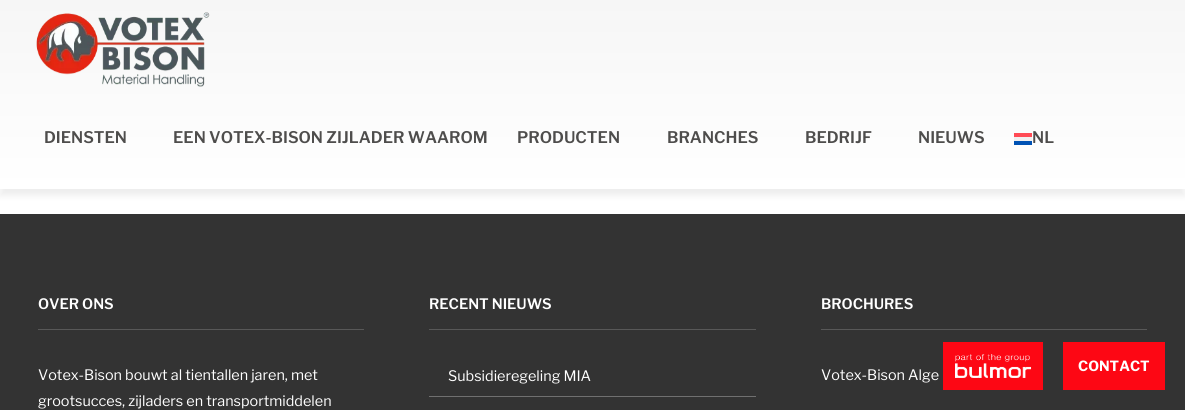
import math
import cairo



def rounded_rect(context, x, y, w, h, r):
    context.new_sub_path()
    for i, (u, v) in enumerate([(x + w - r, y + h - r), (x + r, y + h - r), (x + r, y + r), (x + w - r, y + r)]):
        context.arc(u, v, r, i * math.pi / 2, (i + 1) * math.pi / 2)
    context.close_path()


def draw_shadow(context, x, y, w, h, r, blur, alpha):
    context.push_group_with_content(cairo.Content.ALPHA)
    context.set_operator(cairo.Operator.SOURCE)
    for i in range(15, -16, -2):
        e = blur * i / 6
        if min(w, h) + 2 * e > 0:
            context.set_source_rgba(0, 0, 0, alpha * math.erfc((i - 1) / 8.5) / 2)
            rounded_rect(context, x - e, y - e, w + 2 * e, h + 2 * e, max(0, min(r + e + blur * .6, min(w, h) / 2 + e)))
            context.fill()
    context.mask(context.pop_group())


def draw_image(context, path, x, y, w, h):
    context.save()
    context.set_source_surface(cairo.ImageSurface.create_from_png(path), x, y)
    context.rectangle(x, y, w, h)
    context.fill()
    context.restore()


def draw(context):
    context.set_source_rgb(1, 1, 1)
    context.paint()
    context.set_source_rgb(0, 0, 0)
    draw_shadow(context, 0, 7, 1185, 189, 0, 3.5, 0.07)
    gradient = cairo.LinearGradient(593, 0, 593, 189)
    gradient.add_color_stop_rgba(0, 246 / 255, 246 / 255, 246 / 255, 1)
    gradient.add_color_stop_rgba(1, 1, 1, 1, 1)
    context.set_source(gradient)
    context.rectangle(0, 0, 1185, 189)
    context.fill()
    draw_image(context, "images/1.png", 36, 12, 174, 75)
    context.set_source_rgb(1, 75 / 255, 85 / 255)
    context.rectangle(1014, 133, 18, 4)
    context.fill()
    context.set_source_rgb(240 / 255, 240 / 255, 240 / 255)
    context.rectangle(1014, 137, 18, 4)
    context.fill()
    context.set_source_rgb(0, 82 / 255, 180 / 255)
    context.rectangle(1014, 141, 18, 4)
    context.fill()
    context.set_source_rgb(51 / 255, 51 / 255, 51 / 255)
    context.rectangle(0, 214, 1185, 196)
    context.fill()
    context.set_source_rgb(88 / 255, 88 / 255, 88 / 255)
    context.rectangle(38, 329, 326, 1)
    context.fill()
    context.rectangle(429, 329, 327, 1)
    context.fill()
    context.set_source_rgb(112 / 255, 112 / 255, 112 / 255)
    context.rectangle(429, 396, 327, 1)
    context.fill()
    context.set_source_rgb(88 / 255, 88 / 255, 88 / 255)
    context.rectangle(821, 329, 326, 1)
    context.fill()
    context.set_source_rgb(253 / 255, 7 / 255, 20 / 255)
    context.rectangle(943, 342, 100, 48)
    context.fill()
    draw_image(context, "images/2.png", 955, 354, 77, 24)
    context.rectangle(1063, 342, 102, 48)
    context.fill()
    context.select_font_face("Libre Franklin SemiBold")
    context.set_font_size(16)
    context.set_source_rgb(78 / 255, 77 / 255, 76 / 255)
    context.move_to(44, 143)
    context.show_text("DIENSTEN")
    context.move_to(173, 143)
    context.show_text("EEN VOTEX-BISON ZIJLADER WAAROM")
    context.move_to(517, 143)
    context.show_text("PRODUCTEN")
    context.move_to(667, 143)
    context.show_text("BRANCHES")
    context.move_to(805, 143)
    context.show_text("BEDRIJF")
    context.move_to(918, 143)
    context.show_text("NIEUWS")
    context.move_to(1032, 143)
    context.show_text("NL")
    context.set_font_size(14.4)
    context.set_source_rgb(1, 1, 1)
    context.move_to(38, 309)
    context.show_text("OVER ONS")
    context.select_font_face("Libre Franklin")
    context.move_to(38, 380)
    context.show_text("Votex-Bison bouwt al tientallen jaren, met")
    context.move_to(38, 406)
    context.show_text("grootsucces, zijladers en transportmiddelen")
    context.select_font_face("Libre Franklin SemiBold")
    context.move_to(429, 309)
    context.show_text("RECENT NIEUWS")
    context.select_font_face("Libre Franklin")
    context.move_to(448, 381)
    context.show_text("Subsidieregeling MIA")
    context.select_font_face("Libre Franklin SemiBold")
    context.move_to(821, 309)
    context.show_text("BROCHURES")
    context.select_font_face("Libre Franklin")
    context.move_to(821, 380)
    context.show_text("Votex-Bison Alge")
    context.select_font_face("Libre Franklin", cairo.FontSlant.NORMAL, cairo.FontWeight.BOLD)
    context.set_font_size(14)
    context.move_to(1078, 371)
    context.show_text("CONTACT")


surface = cairo.ImageSurface(cairo.Format.RGB24, 1185, 410)
context = cairo.Context(surface)
options = cairo.FontOptions()
options.set_hint_metrics(cairo.HintMetrics.OFF)
options.set_hint_style(cairo.HintStyle.NONE)
context.set_font_options(options)
context.set_miter_limit(4)
draw(context)
surface.write_to_png("out.png")
